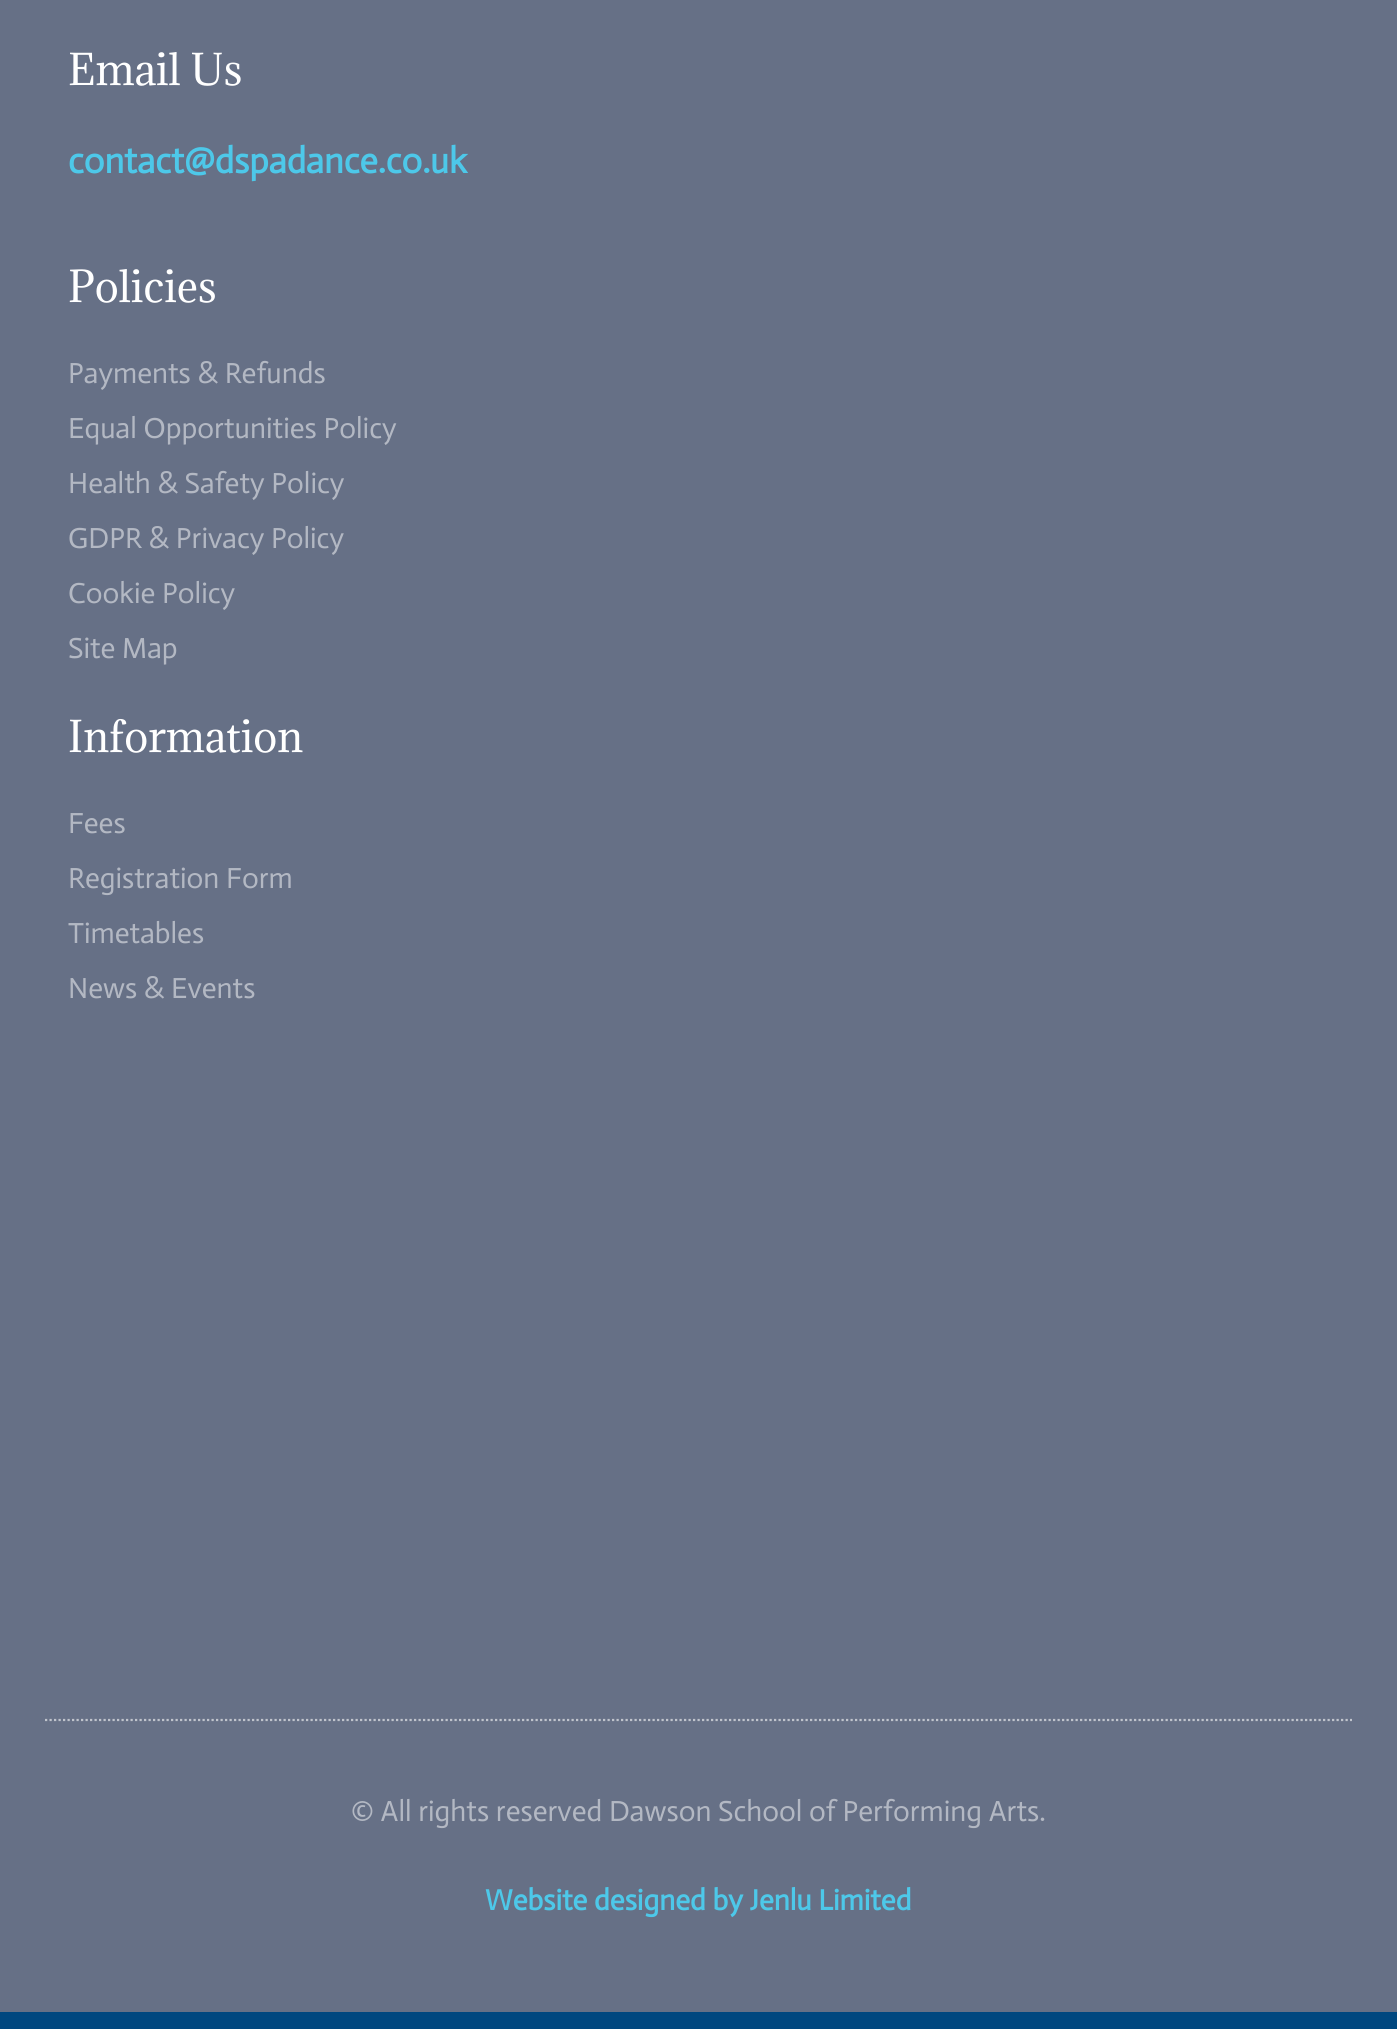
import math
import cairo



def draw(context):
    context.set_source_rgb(0, 71 / 255, 127 / 255)
    context.paint()
    context.set_source_rgb(102 / 255, 112 / 255, 134 / 255)
    context.rectangle(0, 0, 1397, 2012)
    context.fill()
    context.new_path()
    context.move_to(45, 1720)
    context.line_to(1352, 1720)
    context.set_source_rgb(192 / 255, 196 / 255, 205 / 255)
    context.set_line_width(2.2)
    context.set_dash([2.25, 2.25])
    context.stroke()
    context.select_font_face("Adamina")
    context.set_font_size(40.5)
    context.set_source_rgb(1, 1, 1)
    context.move_to(68, 85)
    context.show_text("Email Us")
    context.select_font_face("Actor", cairo.FontSlant.NORMAL, cairo.FontWeight.BOLD)
    context.set_font_size(36)
    context.set_source_rgb(77 / 255, 200 / 255, 233 / 255)
    context.move_to(68, 173)
    context.show_text("contact@dspadance.co.uk")
    context.select_font_face("Adamina")
    context.set_font_size(40.5)
    context.set_source_rgb(1, 1, 1)
    context.move_to(68, 302)
    context.show_text("Policies")
    context.select_font_face("Actor")
    context.set_font_size(29.25)
    context.set_source_rgb(179 / 255, 184 / 255, 195 / 255)
    context.move_to(68, 383)
    context.show_text("Payments & Refunds")
    context.move_to(68, 438)
    context.show_text("Equal Opportunities Policy")
    context.move_to(68, 493)
    context.show_text("Health & Safety Policy")
    context.move_to(68, 548)
    context.show_text("GDPR & Privacy Policy")
    context.move_to(68, 603)
    context.show_text("Cookie Policy")
    context.move_to(68, 658)
    context.show_text("Site Map")
    context.select_font_face("Adamina")
    context.set_font_size(40.5)
    context.set_source_rgb(1, 1, 1)
    context.move_to(68, 752)
    context.show_text("Information")
    context.select_font_face("Actor")
    context.set_font_size(29.25)
    context.set_source_rgb(179 / 255, 184 / 255, 195 / 255)
    context.move_to(68, 833)
    context.show_text("Fees")
    context.move_to(68, 888)
    context.show_text("Registration Form")
    context.move_to(68, 943)
    context.show_text("Timetables")
    context.move_to(68, 998)
    context.show_text("News & Events")
    context.move_to(351, 1821)
    context.show_text("© All rights reserved Dawson School of Performing Arts.")
    context.select_font_face("Actor", cairo.FontSlant.NORMAL, cairo.FontWeight.BOLD)
    context.set_source_rgb(77 / 255, 200 / 255, 233 / 255)
    context.move_to(485, 1910)
    context.show_text("Website designed by Jenlu Limited")


surface = cairo.ImageSurface(cairo.Format.RGB24, 1397, 2029)
context = cairo.Context(surface)
options = cairo.FontOptions()
options.set_hint_metrics(cairo.HintMetrics.OFF)
options.set_hint_style(cairo.HintStyle.NONE)
context.set_font_options(options)
context.set_miter_limit(4)
draw(context)
surface.write_to_png("out.png")
